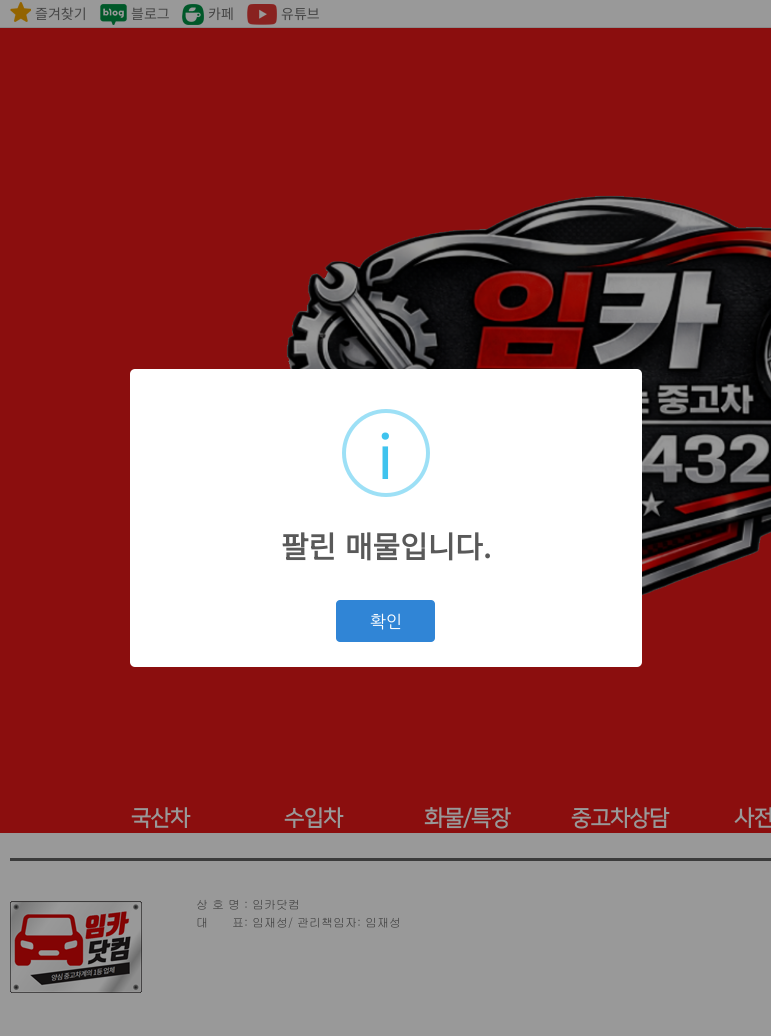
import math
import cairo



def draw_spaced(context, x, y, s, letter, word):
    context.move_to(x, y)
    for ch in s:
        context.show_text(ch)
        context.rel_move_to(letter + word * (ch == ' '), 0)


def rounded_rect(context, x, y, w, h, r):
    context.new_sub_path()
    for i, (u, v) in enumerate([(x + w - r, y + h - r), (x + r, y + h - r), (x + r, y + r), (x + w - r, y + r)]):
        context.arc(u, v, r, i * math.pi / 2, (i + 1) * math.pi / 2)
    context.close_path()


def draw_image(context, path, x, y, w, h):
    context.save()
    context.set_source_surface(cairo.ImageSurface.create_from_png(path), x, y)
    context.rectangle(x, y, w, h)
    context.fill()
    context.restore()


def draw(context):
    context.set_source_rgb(153 / 255, 153 / 255, 153 / 255)
    context.paint()
    context.set_source_rgb(139 / 255, 14 / 255, 14 / 255)
    context.rectangle(0, 28, 771, 805)
    context.fill()
    context.set_source_rgb(137 / 255, 137 / 255, 137 / 255)
    context.rectangle(0, 27, 771, 1)
    context.fill()
    draw_image(context, "images/1.png", 10, 2, 21, 20)
    draw_image(context, "images/2.png", 100, 4, 27, 21)
    draw_image(context, "images/3.png", 182, 4, 22, 21)
    draw_image(context, "images/4.png", 247, 4, 30, 21)
    draw_image(context, "images/5.png", 286, 195, 485, 401)
    context.set_source_rgb(1, 1, 1)
    rounded_rect(context, 130, 369, 512, 298, 5)
    context.fill()
    context.arc(386, 453, 42, 0, 2 * math.pi)
    context.set_source_rgb(157 / 255, 224 / 255, 246 / 255)
    context.set_line_width(4)
    context.stroke()
    context.set_source_rgb(48 / 255, 133 / 255, 214 / 255)
    rounded_rect(context, 336, 600, 99, 42, 4)
    context.fill()
    context.set_source_rgb(59 / 255, 59 / 255, 59 / 255)
    context.rectangle(10, 858, 761, 3)
    context.fill()
    draw_image(context, "images/6.png", 10, 901, 132, 92)
    context.select_font_face("Noto Sans KR Thin")
    context.set_font_size(14)
    context.set_source_rgb(70 / 255, 70 / 255, 70 / 255)
    context.move_to(35, 19)
    context.show_text("즐겨찾기")
    context.move_to(131, 19)
    context.show_text("블로그")
    context.move_to(208, 19)
    context.show_text("카페")
    context.move_to(281, 19)
    context.show_text("유튜브")
    context.select_font_face("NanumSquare", cairo.FontSlant.NORMAL, cairo.FontWeight.BOLD)
    context.set_font_size(22)
    context.set_source_rgb(153 / 255, 153 / 255, 153 / 255)
    draw_spaced(context, 131, 825, "국산차", -0.5, 0)
    draw_spaced(context, 284, 825, "수입차", -0.5, 0)
    draw_spaced(context, 424, 825, "화물/특장", -0.5, 0)
    draw_spaced(context, 571, 825, "중고차상담", -0.5, 0)
    draw_spaced(context, 734, 825, "사전", -0.5, 0)
    context.select_font_face("Noto Sans KR Thin")
    context.set_font_size(60)
    context.set_source_rgb(63 / 255, 195 / 255, 238 / 255)
    context.move_to(377, 479)
    context.show_text("i")
    context.select_font_face("Noto Sans KR", cairo.FontSlant.NORMAL, cairo.FontWeight.BOLD)
    context.set_font_size(30)
    context.set_source_rgb(89 / 255, 89 / 255, 89 / 255)
    draw_spaced(context, 281, 558, "팔린 매물입니다.", 0, 2)
    context.select_font_face("NanumGothic")
    context.set_font_size(17)
    context.set_source_rgb(1, 1, 1)
    context.move_to(370, 627)
    context.show_text("확인")
    context.select_font_face("Gulim")
    context.set_font_size(12)
    context.set_source_rgb(61 / 255, 61 / 255, 61 / 255)
    context.move_to(196, 909)
    context.show_text("상 호 명 : 임카닷컴")
    context.move_to(196, 927)
    context.show_text("대      표: 임재성/ 관리책임자: 임재성")


surface = cairo.ImageSurface(cairo.Format.RGB24, 771, 1036)
context = cairo.Context(surface)
options = cairo.FontOptions()
options.set_hint_metrics(cairo.HintMetrics.OFF)
options.set_hint_style(cairo.HintStyle.NONE)
context.set_font_options(options)
context.set_miter_limit(4)
draw(context)
surface.write_to_png("out.png")
